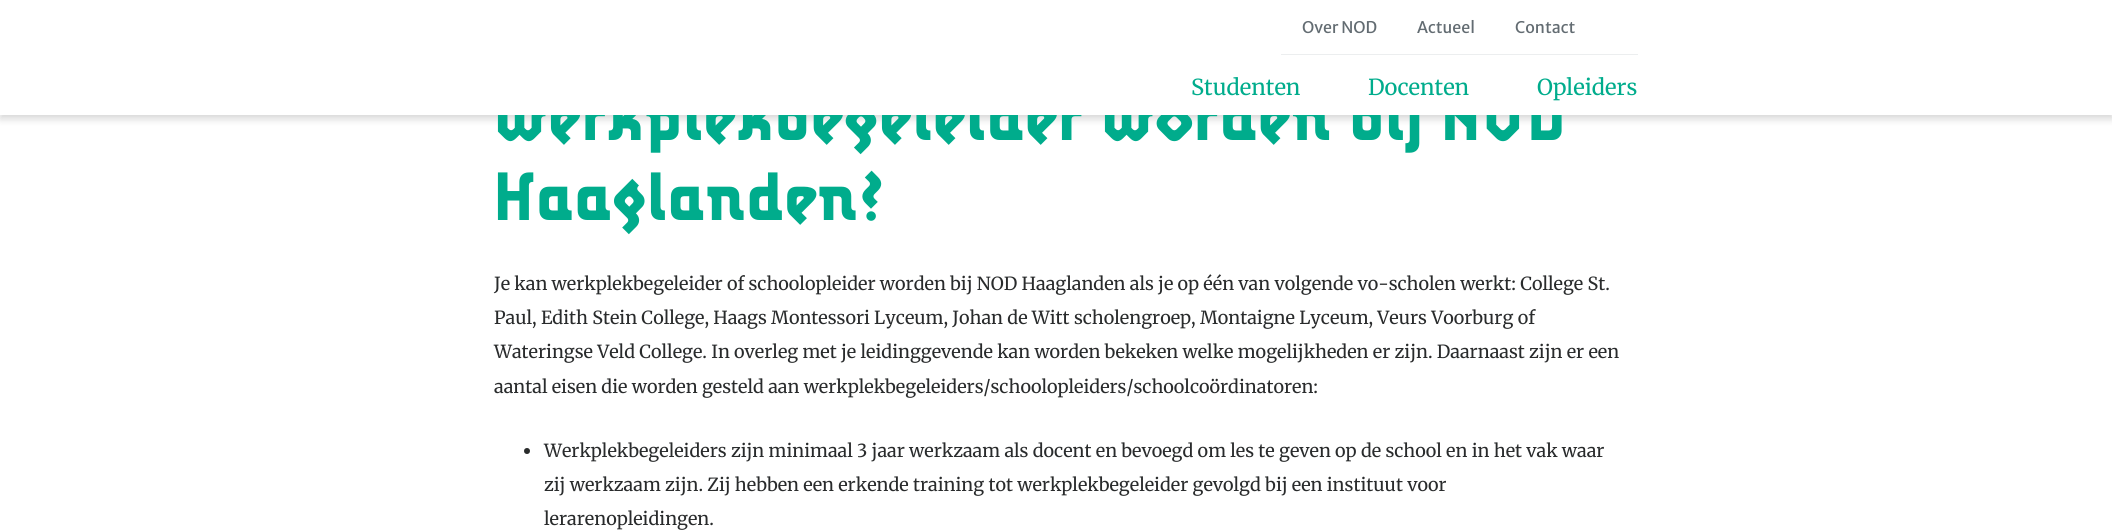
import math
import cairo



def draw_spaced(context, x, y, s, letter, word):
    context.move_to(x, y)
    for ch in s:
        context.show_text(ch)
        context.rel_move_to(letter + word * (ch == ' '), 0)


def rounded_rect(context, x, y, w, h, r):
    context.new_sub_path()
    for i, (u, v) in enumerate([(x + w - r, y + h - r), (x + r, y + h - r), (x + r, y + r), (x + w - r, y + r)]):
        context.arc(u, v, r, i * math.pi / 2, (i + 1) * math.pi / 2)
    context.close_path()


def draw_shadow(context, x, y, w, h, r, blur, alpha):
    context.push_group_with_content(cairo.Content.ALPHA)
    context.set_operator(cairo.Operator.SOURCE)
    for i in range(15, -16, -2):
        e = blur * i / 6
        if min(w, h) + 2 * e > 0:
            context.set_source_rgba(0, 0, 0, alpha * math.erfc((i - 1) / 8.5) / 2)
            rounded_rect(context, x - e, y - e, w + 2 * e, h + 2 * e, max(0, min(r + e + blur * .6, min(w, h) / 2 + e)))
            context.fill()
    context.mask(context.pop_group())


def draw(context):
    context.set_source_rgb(1, 1, 1)
    context.paint()
    context.set_source_rgb(0, 0, 0)
    draw_shadow(context, 0, 4, 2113, 115, 0, 4, 0.16)
    context.set_source_rgb(41 / 255, 43 / 255, 44 / 255)
    context.arc(527, 451, 3, 0, 2 * math.pi)
    context.fill()
    context.select_font_face("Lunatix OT", cairo.FontSlant.NORMAL, cairo.FontWeight.BOLD)
    context.set_font_size(68)
    context.set_source_rgb(0, 172 / 255, 140 / 255)
    draw_spaced(context, 494, 140, "werkplekbegeleider worden bij NOD", 0.25, 0)
    context.set_source_rgb(1, 1, 1)
    context.rectangle(0, 0, 2112, 115)
    context.fill()
    context.set_source_rgb(236 / 255, 238 / 255, 239 / 255)
    context.rectangle(1281, 54, 357, 1)
    context.fill()
    context.select_font_face("Merriweather Sans")
    context.set_font_size(16)
    context.set_source_rgb(99 / 255, 108 / 255, 114 / 255)
    context.move_to(1515, 33)
    context.show_text("Contact")
    context.move_to(1417, 33)
    context.show_text("Actueel")
    context.move_to(1302, 33)
    context.show_text("Over NOD")
    context.select_font_face("Merriweather")
    context.set_font_size(22)
    context.set_source_rgb(0, 172 / 255, 140 / 255)
    context.move_to(1537, 95)
    context.show_text("Opleiders")
    context.move_to(1368, 95)
    context.show_text("Docenten")
    context.move_to(1191, 95)
    context.show_text("Studenten")
    context.select_font_face("Lunatix OT", cairo.FontSlant.NORMAL, cairo.FontWeight.BOLD)
    context.set_font_size(68)
    draw_spaced(context, 494, 220, "Haaglanden?", 0.25, 0)
    context.select_font_face("Merriweather")
    context.set_font_size(18)
    context.set_source_rgb(41 / 255, 43 / 255, 44 / 255)
    context.move_to(494, 290)
    context.show_text("Je kan werkplekbegeleider of schoolopleider worden bij NOD Haaglanden als je op één van volgende vo-scholen werkt: College St.")
    context.move_to(494, 324)
    context.show_text("Paul, Edith Stein College, Haags Montessori Lyceum, Johan de Witt scholengroep, Montaigne Lyceum, Veurs Voorburg of")
    context.move_to(494, 358)
    context.show_text("Wateringse Veld College. In overleg met je leidinggevende kan worden bekeken welke mogelijkheden er zijn. Daarnaast zijn er een")
    context.move_to(494, 393)
    context.show_text("aantal eisen die worden gesteld aan werkplekbegeleiders/schoolopleiders/schoolcoördinatoren:")
    context.move_to(544, 457)
    context.show_text("Werkplekbegeleiders zijn minimaal 3 jaar werkzaam als docent en bevoegd om les te geven op de school en in het vak waar")
    context.move_to(544, 491)
    context.show_text("zij werkzaam zijn. Zij hebben een erkende training tot werkplekbegeleider gevolgd bij een instituut voor")
    context.move_to(544, 525)
    context.show_text("lerarenopleidingen.")


surface = cairo.ImageSurface(cairo.Format.RGB24, 2112, 530)
context = cairo.Context(surface)
options = cairo.FontOptions()
options.set_hint_metrics(cairo.HintMetrics.OFF)
options.set_hint_style(cairo.HintStyle.NONE)
context.set_font_options(options)
context.set_miter_limit(4)
draw(context)
surface.write_to_png("out.png")
